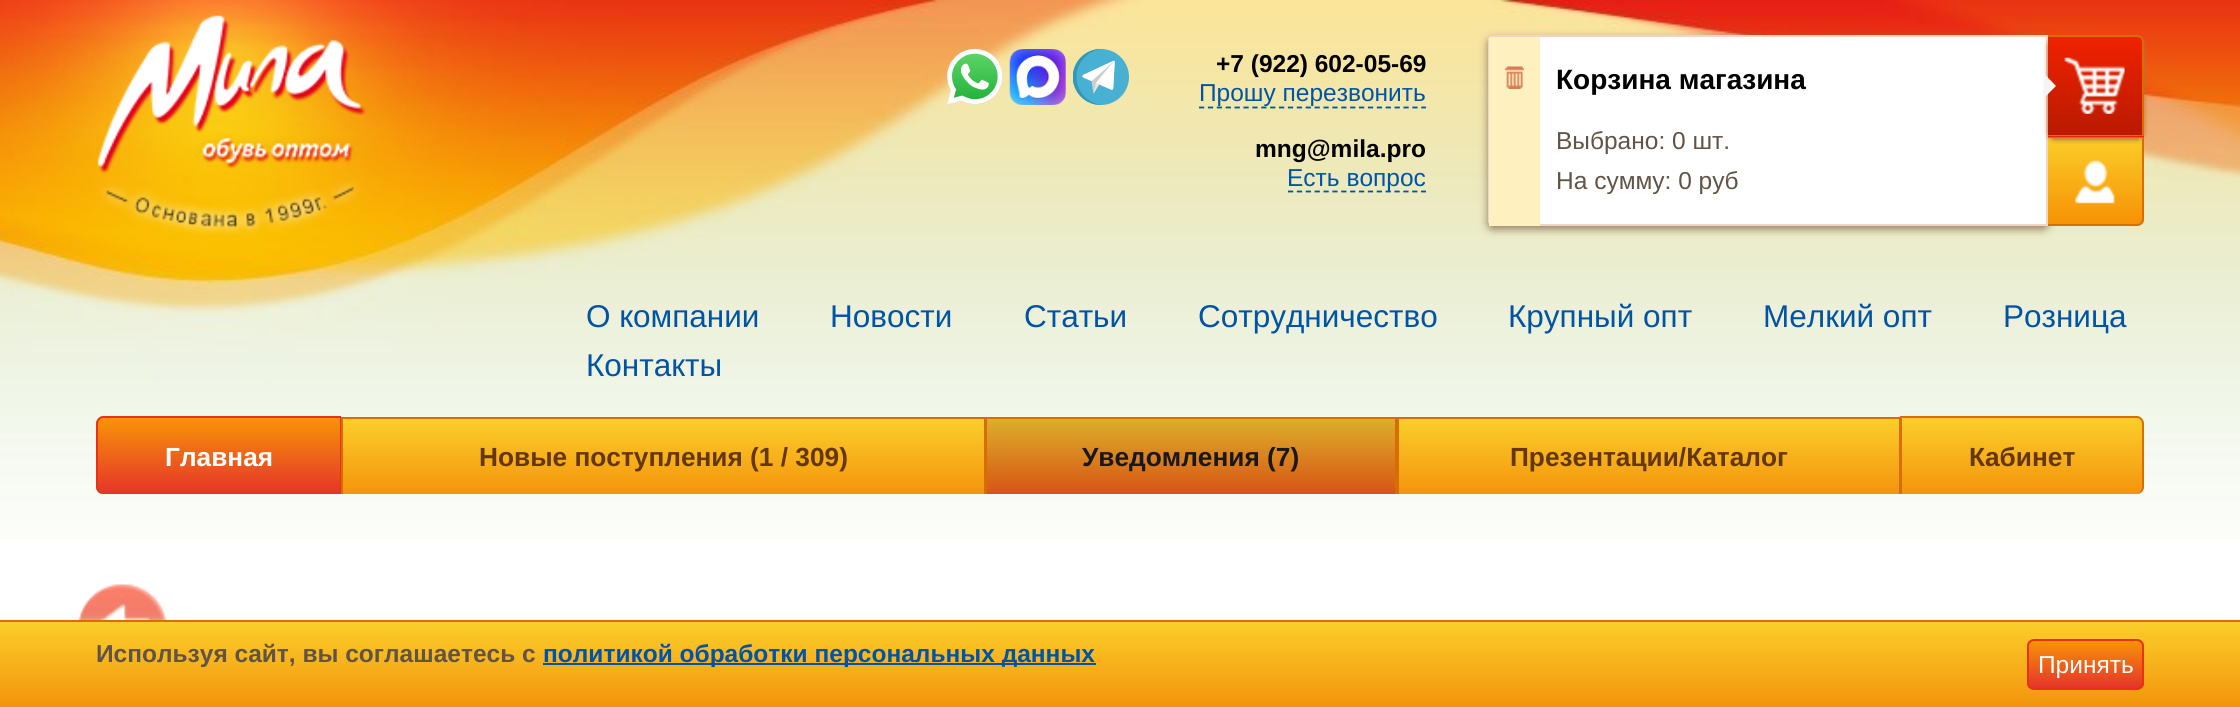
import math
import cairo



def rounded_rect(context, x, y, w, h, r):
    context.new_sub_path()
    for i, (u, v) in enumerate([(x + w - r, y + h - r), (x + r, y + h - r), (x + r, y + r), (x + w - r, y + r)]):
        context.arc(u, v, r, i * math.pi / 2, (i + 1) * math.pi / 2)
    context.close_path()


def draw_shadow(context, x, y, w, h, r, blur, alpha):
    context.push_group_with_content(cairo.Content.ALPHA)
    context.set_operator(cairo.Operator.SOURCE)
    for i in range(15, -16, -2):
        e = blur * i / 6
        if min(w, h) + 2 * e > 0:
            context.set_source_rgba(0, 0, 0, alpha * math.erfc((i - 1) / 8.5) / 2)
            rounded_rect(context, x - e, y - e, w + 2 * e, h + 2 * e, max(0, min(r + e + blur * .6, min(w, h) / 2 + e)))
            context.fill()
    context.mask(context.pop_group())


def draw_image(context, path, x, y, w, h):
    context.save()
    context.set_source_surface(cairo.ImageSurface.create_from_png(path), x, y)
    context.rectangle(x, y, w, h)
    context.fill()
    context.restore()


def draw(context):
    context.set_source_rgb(1, 1, 1)
    context.paint()
    draw_image(context, "images/1.png", 0, 0, 2240, 540)
    draw_image(context, "images/2.png", 97, 15, 269, 220)
    draw_image(context, "images/3.png", 947, 49, 56, 56)
    draw_image(context, "images/4.png", 1009, 49, 57, 56)
    draw_image(context, "images/5.png", 1073, 49, 56, 56)
    context.new_path()
    context.move_to(1199, 107.5)
    context.line_to(1426, 107.5)
    context.set_source_rgb(0, 84 / 255, 166 / 255)
    context.set_line_width(1.8)
    context.set_dash([5.25, 3.64])
    context.stroke()
    context.new_path()
    context.move_to(1288, 191.5)
    context.line_to(1426, 191.5)
    context.set_dash([5.25, 3.62])
    context.stroke()
    context.set_source_rgb(146 / 255, 121 / 255, 95 / 255)
    draw_shadow(context, 1488, 39, 560, 190, 5, 4.5, 1)
    context.set_source_rgb(1, 1, 1)
    context.new_path()
    context.move_to(1493, 36)
    context.line_to(2047, 36)
    context.line_to(2047, 225)
    context.line_to(1493, 225)
    context.curve_to(1491, 225, 1489, 223, 1489, 221)
    context.line_to(1489, 40)
    context.curve_to(1489, 38, 1491, 36, 1493, 36)
    context.close_path()
    context.fill_preserve()
    context.set_source_rgb(242 / 255, 212 / 255, 197 / 255)
    context.set_line_width(2)
    context.set_dash([])
    context.stroke()
    context.set_source_rgb(1, 240 / 255, 192 / 255)
    context.rectangle(1489, 37, 51, 189)
    context.fill()
    context.set_source_rgb(215 / 255, 124 / 255, 84 / 255)
    context.rectangle(1505, 66, 19, 23)
    context.fill()
    draw_image(context, "images/6.png", 1505, 65, 19, 24)
    context.save()
    context.new_path()
    context.move_to(2048, 137)
    context.line_to(2144, 137)
    context.line_to(2144, 219)
    context.curve_to(2144, 223, 2141, 226, 2137, 226)
    context.line_to(2048, 226)
    context.close_path()
    context.clip()
    gradient = cairo.LinearGradient(2095, 138, 2095, 224)
    gradient.add_color_stop_rgba(0, 251 / 255, 205 / 255, 40 / 255, 1)
    gradient.add_color_stop_rgba(1, 246 / 255, 146 / 255, 5 / 255, 1)
    context.set_source(gradient)
    context.rectangle(2048, 138, 96, 86)
    context.fill()
    context.restore()
    context.set_source_rgb(216 / 255, 110 / 255, 0)
    context.set_fill_rule(cairo.FillRule.EVEN_ODD)
    context.new_path()
    context.move_to(2048, 136)
    context.line_to(2144, 136)
    context.line_to(2144, 219)
    context.curve_to(2144, 223, 2141, 226, 2137, 226)
    context.line_to(2048, 226)
    context.close_path()
    context.move_to(2048, 138)
    context.line_to(2142, 138)
    context.line_to(2142, 219)
    context.curve_to(2142, 222, 2140, 224, 2137, 224)
    context.line_to(2048, 224)
    context.close_path()
    context.fill()
    context.set_source_rgb(185 / 255, 113 / 255, 60 / 255)
    draw_shadow(context, 2048, 39, 96, 101, 7, 2.5, 1)
    context.save()
    context.set_fill_rule(cairo.FillRule.WINDING)
    context.new_path()
    context.move_to(2048, 35)
    context.line_to(2137, 35)
    context.curve_to(2141, 35, 2144, 38, 2144, 42)
    context.line_to(2144, 137)
    context.line_to(2048, 137)
    context.close_path()
    context.clip()
    gradient = cairo.LinearGradient(2095, 37, 2095, 135)
    gradient.add_color_stop_rgba(0, 240 / 255, 34 / 255, 0, 1)
    gradient.add_color_stop_rgba(1, 184 / 255, 26 / 255, 0, 1)
    context.set_source(gradient)
    context.rectangle(2048, 37, 96, 98)
    context.fill()
    context.restore()
    gradient = cairo.LinearGradient(2095, 135, 2095, 233)
    gradient.add_color_stop_rgba(0, 240 / 255, 34 / 255, 0, 1)
    gradient.add_color_stop_rgba(1, 184 / 255, 26 / 255, 0, 1)
    context.set_source(gradient)
    context.rectangle(2048, 136, 96, 1)
    context.fill()
    context.set_source_rgb(216 / 255, 110 / 255, 0)
    context.new_path()
    context.move_to(2048, 35)
    context.line_to(2137, 35)
    context.curve_to(2141, 35, 2144, 38, 2144, 42)
    context.line_to(2144, 136)
    context.line_to(2048, 136)
    context.close_path()
    context.move_to(2048, 37)
    context.line_to(2137, 37)
    context.curve_to(2140, 37, 2142, 39, 2142, 42)
    context.line_to(2142, 135)
    context.line_to(2048, 135)
    context.close_path()
    context.fill()
    context.set_source_rgb(245 / 255, 245 / 255, 245 / 255)
    context.set_fill_rule(cairo.FillRule.WINDING)
    context.new_path()
    context.move_to(2044, 98)
    context.line_to(2044, 73.5)
    context.line_to(2056, 86)
    context.close_path()
    context.fill()
    draw_image(context, "images/7.png", 2064, 57, 61, 57)
    draw_image(context, "images/8.png", 2075, 160, 40, 44)
    context.save()
    context.new_path()
    context.move_to(103, 417)
    context.line_to(341, 417)
    context.line_to(341, 494)
    context.line_to(103, 494)
    context.curve_to(99, 494, 96, 491, 96, 487)
    context.line_to(96, 424)
    context.curve_to(96, 420, 99, 417, 103, 417)
    context.close_path()
    context.clip()
    gradient = cairo.LinearGradient(219, 418, 219, 494)
    gradient.add_color_stop_rgba(0, 248 / 255, 147 / 255, 6 / 255, 1)
    gradient.add_color_stop_rgba(1, 229 / 255, 52 / 255, 43 / 255, 1)
    context.set_source(gradient)
    context.new_path()
    context.move_to(96, 418)
    context.line_to(341, 418)
    context.line_to(341, 494)
    context.line_to(103, 494)
    context.curve_to(99, 494, 96, 491, 96, 487)
    context.close_path()
    context.fill()
    context.restore()
    context.set_source_rgb(233 / 255, 49 / 255, 20 / 255)
    context.set_fill_rule(cairo.FillRule.EVEN_ODD)
    context.new_path()
    context.move_to(103, 416)
    context.line_to(341, 416)
    context.line_to(341, 494)
    context.line_to(103, 494)
    context.curve_to(99, 494, 96, 490, 96, 486)
    context.line_to(96, 424)
    context.curve_to(96, 420, 99, 416, 103, 416)
    context.close_path()
    context.move_to(103, 418)
    context.line_to(340, 418)
    context.line_to(340, 494)
    context.line_to(103, 494)
    context.curve_to(100, 494, 98, 490, 98, 486)
    context.line_to(98, 424)
    context.curve_to(98, 421, 100, 418, 103, 418)
    context.close_path()
    context.fill()
    gradient = cairo.LinearGradient(663, 418, 663, 494)
    gradient.add_color_stop_rgba(0, 251 / 255, 207 / 255, 43 / 255, 1)
    gradient.add_color_stop_rgba(1, 244 / 255, 148 / 255, 12 / 255, 1)
    context.set_source(gradient)
    context.rectangle(343, 419, 641, 75)
    context.fill()
    context.set_source_rgb(216 / 255, 110 / 255, 0)
    context.rectangle(341, 417, 1560, 2)
    context.fill()
    context.rectangle(984, 417, 3, 77)
    context.fill()
    context.rectangle(341, 417, 2, 77)
    context.fill()
    gradient = cairo.LinearGradient(1191, 418, 1191, 494)
    gradient.add_color_stop_rgba(0, 220 / 255, 176 / 255, 43 / 255, 1)
    gradient.add_color_stop_rgba(1, 216 / 255, 84 / 255, 21 / 255, 1)
    context.set_source(gradient)
    context.rectangle(987, 419, 408, 75)
    context.fill()
    context.set_source_rgb(216 / 255, 110 / 255, 0)
    context.rectangle(1395, 417, 4, 77)
    context.fill()
    gradient = cairo.LinearGradient(1649, 418, 1649, 494)
    gradient.add_color_stop_rgba(0, 251 / 255, 207 / 255, 43 / 255, 1)
    gradient.add_color_stop_rgba(1, 244 / 255, 148 / 255, 12 / 255, 1)
    context.set_source(gradient)
    context.rectangle(1399, 419, 500, 75)
    context.fill()
    context.set_source_rgb(216 / 255, 110 / 255, 0)
    context.rectangle(1899, 417, 1, 77)
    context.fill()
    context.save()
    context.set_fill_rule(cairo.FillRule.WINDING)
    context.new_path()
    context.move_to(1901, 417)
    context.line_to(2137, 417)
    context.curve_to(2141, 417, 2144, 420, 2144, 424)
    context.line_to(2144, 487)
    context.curve_to(2144, 491, 2141, 494, 2137, 494)
    context.line_to(1901, 494)
    context.close_path()
    context.clip()
    gradient = cairo.LinearGradient(2022, 418, 2022, 494)
    gradient.add_color_stop_rgba(0, 251 / 255, 207 / 255, 43 / 255, 1)
    gradient.add_color_stop_rgba(1, 244 / 255, 148 / 255, 12 / 255, 1)
    context.set_source(gradient)
    context.new_path()
    context.move_to(1901, 418)
    context.line_to(2144, 418)
    context.line_to(2144, 487)
    context.curve_to(2144, 491, 2141, 494, 2137, 494)
    context.line_to(1901, 494)
    context.close_path()
    context.fill()
    context.restore()
    context.new_path()
    context.move_to(1900, 416)
    context.line_to(2137, 416)
    context.curve_to(2141, 416, 2144, 420, 2144, 424)
    context.line_to(2144, 486)
    context.curve_to(2144, 490, 2141, 494, 2137, 494)
    context.line_to(1900, 494)
    context.close_path()
    context.move_to(1902, 418)
    context.line_to(2137, 418)
    context.curve_to(2140, 418, 2142, 421, 2142, 424)
    context.line_to(2142, 486)
    context.curve_to(2142, 490, 2140, 494, 2137, 494)
    context.line_to(1902, 494)
    context.close_path()
    context.fill()
    draw_image(context, "images/9.png", 78, 584, 89, 36)
    context.set_source_rgb(241 / 255, 235 / 255, 231 / 255)
    draw_shadow(context, 0, 623, 2240, 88, 0, 4.5, 1)
    gradient = cairo.LinearGradient(1120, 621, 1120, 707)
    gradient.add_color_stop_rgba(0, 251 / 255, 207 / 255, 43 / 255, 1)
    gradient.add_color_stop_rgba(1, 244 / 255, 148 / 255, 12 / 255, 1)
    context.set_source(gradient)
    context.rectangle(0, 622, 2240, 85)
    context.fill()
    context.set_source_rgb(216 / 255, 110 / 255, 0)
    context.rectangle(0, 620, 2240, 2)
    context.fill()
    context.set_source_rgb(0, 84 / 255, 166 / 255)
    context.rectangle(543, 663, 553, 2)
    context.fill()
    context.save()
    context.set_fill_rule(cairo.FillRule.WINDING)
    rounded_rect(context, 2027, 639, 117, 51, 7)
    context.clip()
    gradient = cairo.LinearGradient(2085, 641, 2085, 688)
    gradient.add_color_stop_rgba(0, 248 / 255, 147 / 255, 6 / 255, 1)
    gradient.add_color_stop_rgba(1, 229 / 255, 52 / 255, 43 / 255, 1)
    context.set_source(gradient)
    context.rectangle(2027, 641, 117, 47)
    context.fill()
    context.restore()
    rounded_rect(context, 2028, 640, 115, 49, 6)
    context.set_source_rgb(233 / 255, 49 / 255, 20 / 255)
    context.stroke()
    context.select_font_face("Liberation Sans", cairo.FontSlant.NORMAL, cairo.FontWeight.BOLD)
    context.set_font_size(24.5)
    context.set_source_rgb(0, 0, 0)
    context.move_to(1216, 72)
    context.show_text("+7 (922) 602-05-69")
    context.select_font_face("Liberation Sans")
    context.set_source_rgb(0, 84 / 255, 166 / 255)
    context.move_to(1199, 101)
    context.show_text("Прошу перезвонить")
    context.select_font_face("Liberation Sans", cairo.FontSlant.NORMAL, cairo.FontWeight.BOLD)
    context.set_source_rgb(0, 0, 0)
    context.move_to(1255, 157)
    context.show_text("mng@mila.pro")
    context.select_font_face("Liberation Sans")
    context.set_source_rgb(0, 84 / 255, 166 / 255)
    context.move_to(1287, 186)
    context.show_text("Есть вопрос")
    context.select_font_face("Liberation Sans", cairo.FontSlant.NORMAL, cairo.FontWeight.BOLD)
    context.set_font_size(28)
    context.set_source_rgb(0, 0, 0)
    context.move_to(1556, 89)
    context.show_text("Корзина магазина")
    context.select_font_face("Liberation Sans")
    context.set_font_size(24.5)
    context.set_source_rgb(97 / 255, 83 / 255, 69 / 255)
    context.move_to(1556, 149)
    context.show_text("Выбрано: 0 шт.")
    context.move_to(1556, 189)
    context.show_text("На сумму: 0 руб")
    context.set_font_size(31.5)
    context.set_source_rgb(0, 84 / 255, 166 / 255)
    context.move_to(586, 327)
    context.show_text("О компании")
    context.move_to(830, 327)
    context.show_text("Новости")
    context.move_to(1024, 327)
    context.show_text("Статьи")
    context.move_to(1198, 327)
    context.show_text("Сотрудничество")
    context.move_to(1508, 327)
    context.show_text("Крупный опт")
    context.move_to(1763, 327)
    context.show_text("Мелкий опт")
    context.move_to(2003, 327)
    context.show_text("Розница")
    context.move_to(586, 376)
    context.show_text("Контакты")
    context.select_font_face("Liberation Sans", cairo.FontSlant.NORMAL, cairo.FontWeight.BOLD)
    context.set_font_size(26.25)
    context.set_source_rgb(1, 1, 1)
    context.move_to(165, 466)
    context.show_text("Главная")
    context.set_source_rgb(101 / 255, 54 / 255, 7 / 255)
    context.move_to(479, 466)
    context.show_text("Новые поступления (1 / 309)")
    context.set_source_rgb(24 / 255, 24 / 255, 24 / 255)
    context.move_to(1082, 466)
    context.show_text("Уведомления (7)")
    context.set_source_rgb(101 / 255, 54 / 255, 7 / 255)
    context.move_to(1510, 466)
    context.show_text("Презентации/Каталог")
    context.move_to(1969, 466)
    context.show_text("Кабинет")
    context.set_font_size(24.5)
    context.set_source_rgb(97 / 255, 83 / 255, 69 / 255)
    context.move_to(96, 662)
    context.show_text("Используя сайт, вы соглашаетесь с")
    context.set_source_rgb(0, 84 / 255, 166 / 255)
    context.move_to(543, 662)
    context.show_text("политикой обработки персональных данных")
    context.select_font_face("Liberation Sans")
    context.set_source_rgb(1, 1, 1)
    context.move_to(2038, 673)
    context.show_text("Принять")


surface = cairo.ImageSurface(cairo.Format.RGB24, 2240, 707)
context = cairo.Context(surface)
options = cairo.FontOptions()
options.set_hint_metrics(cairo.HintMetrics.OFF)
options.set_hint_style(cairo.HintStyle.NONE)
context.set_font_options(options)
context.set_miter_limit(4)
draw(context)
surface.write_to_png("out.png")
